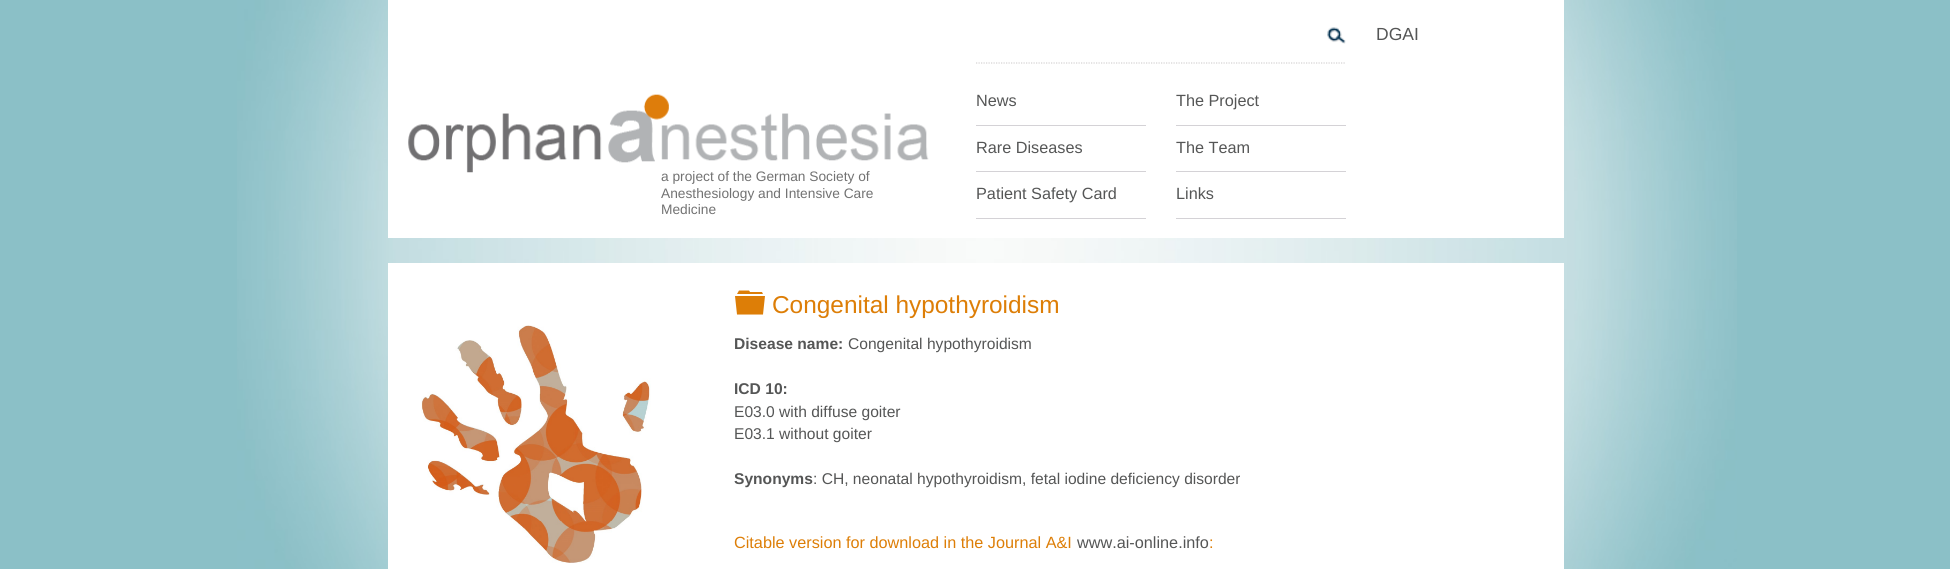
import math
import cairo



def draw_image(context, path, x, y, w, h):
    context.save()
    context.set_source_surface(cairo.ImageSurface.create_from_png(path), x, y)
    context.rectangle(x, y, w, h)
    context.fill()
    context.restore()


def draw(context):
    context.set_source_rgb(139 / 255, 192 / 255, 199 / 255)
    context.paint()
    draw_image(context, "images/1.png", 237, 0, 1500, 569)
    context.set_source_rgb(1, 1, 1)
    context.rectangle(388, 0, 1176, 238)
    context.fill()
    context.new_path()
    context.move_to(976, 63)
    context.line_to(1346, 63)
    context.set_source_rgb(212 / 255, 210 / 255, 211 / 255)
    context.set_line_width(1.2)
    context.set_dash([1.25, 1.25])
    context.stroke()
    draw_image(context, "images/3.png", 1327, 27, 19, 17)
    context.set_source_rgb(212 / 255, 210 / 255, 214 / 255)
    context.rectangle(976, 125, 170, 1)
    context.fill()
    context.rectangle(1176, 125, 170, 1)
    context.fill()
    context.rectangle(976, 171, 170, 1)
    context.fill()
    context.rectangle(1176, 171, 170, 1)
    context.fill()
    context.rectangle(976, 218, 170, 1)
    context.fill()
    context.rectangle(1176, 218, 170, 1)
    context.fill()
    context.set_source_rgb(1, 1, 1)
    context.rectangle(388, 263, 1176, 306)
    context.fill()
    draw_image(context, "images/4.png", 421, 325, 230, 238)
    context.set_source_rgb(221 / 255, 126 / 255, 7 / 255)
    context.new_path()
    context.move_to(735, 296)
    context.line_to(765, 296)
    context.line_to(763, 314.5)
    context.line_to(737, 314.5)
    context.close_path()
    context.move_to(762, 292)
    context.line_to(763, 294)
    context.line_to(737, 294)
    context.line_to(739, 290.5)
    context.line_to(749, 290.5)
    context.line_to(750, 292)
    context.close_path()
    context.fill()
    context.select_font_face("Liberation Sans")
    context.set_font_size(13.75)
    context.set_source_rgb(114 / 255, 114 / 255, 114 / 255)
    context.move_to(661, 181)
    context.show_text("a project of the German Society of")
    draw_image(context, "images/2.png", 408, 94, 521, 79)
    context.move_to(661, 198)
    context.show_text("Anesthesiology and Intensive Care")
    context.move_to(661, 214)
    context.show_text("Medicine")
    context.set_font_size(17.5)
    context.set_source_rgb(85 / 255, 86 / 255, 86 / 255)
    context.move_to(1376, 40)
    context.show_text("DGAI")
    context.set_font_size(16.25)
    context.move_to(976, 106)
    context.show_text("News")
    context.move_to(1176, 106)
    context.show_text("The Project")
    context.move_to(976, 153)
    context.show_text("Rare Diseases")
    context.move_to(1176, 153)
    context.show_text("The Team")
    context.move_to(976, 199)
    context.show_text("Patient Safety Card")
    context.move_to(1176, 199)
    context.show_text("Links")
    context.set_font_size(24.4)
    context.set_source_rgb(221 / 255, 126 / 255, 7 / 255)
    context.move_to(772, 313)
    context.show_text("Congenital hypothyroidism")
    context.select_font_face("Liberation Sans", cairo.FontSlant.NORMAL, cairo.FontWeight.BOLD)
    context.set_font_size(15.6)
    context.set_source_rgb(85 / 255, 86 / 255, 86 / 255)
    context.move_to(734, 349)
    context.show_text("Disease name:")
    context.select_font_face("Liberation Sans")
    context.move_to(848, 349)
    context.show_text("Congenital hypothyroidism")
    context.select_font_face("Liberation Sans", cairo.FontSlant.NORMAL, cairo.FontWeight.BOLD)
    context.move_to(734, 394)
    context.show_text("ICD 10:")
    context.select_font_face("Liberation Sans")
    context.move_to(734, 417)
    context.show_text("E03.0 with diffuse goiter")
    context.move_to(734, 439)
    context.show_text("E03.1 without goiter")
    context.select_font_face("Liberation Sans", cairo.FontSlant.NORMAL, cairo.FontWeight.BOLD)
    context.move_to(734, 484)
    context.show_text("Synonyms")
    context.select_font_face("Liberation Sans")
    context.move_to(813, 484)
    context.show_text(": CH, neonatal hypothyroidism, fetal iodine deficiency disorder")
    context.set_font_size(16.25)
    context.set_source_rgb(221 / 255, 126 / 255, 7 / 255)
    context.move_to(734, 548)
    context.show_text("Citable version for download in the Journal A&I")
    context.set_source_rgb(85 / 255, 86 / 255, 86 / 255)
    context.move_to(1077, 548)
    context.show_text("www.ai-online.info")
    context.set_source_rgb(221 / 255, 126 / 255, 7 / 255)
    context.move_to(1209, 548)
    context.show_text(":")


surface = cairo.ImageSurface(cairo.Format.RGB24, 1950, 569)
context = cairo.Context(surface)
options = cairo.FontOptions()
options.set_hint_metrics(cairo.HintMetrics.OFF)
options.set_hint_style(cairo.HintStyle.NONE)
context.set_font_options(options)
context.set_miter_limit(4)
draw(context)
surface.write_to_png("out.png")
